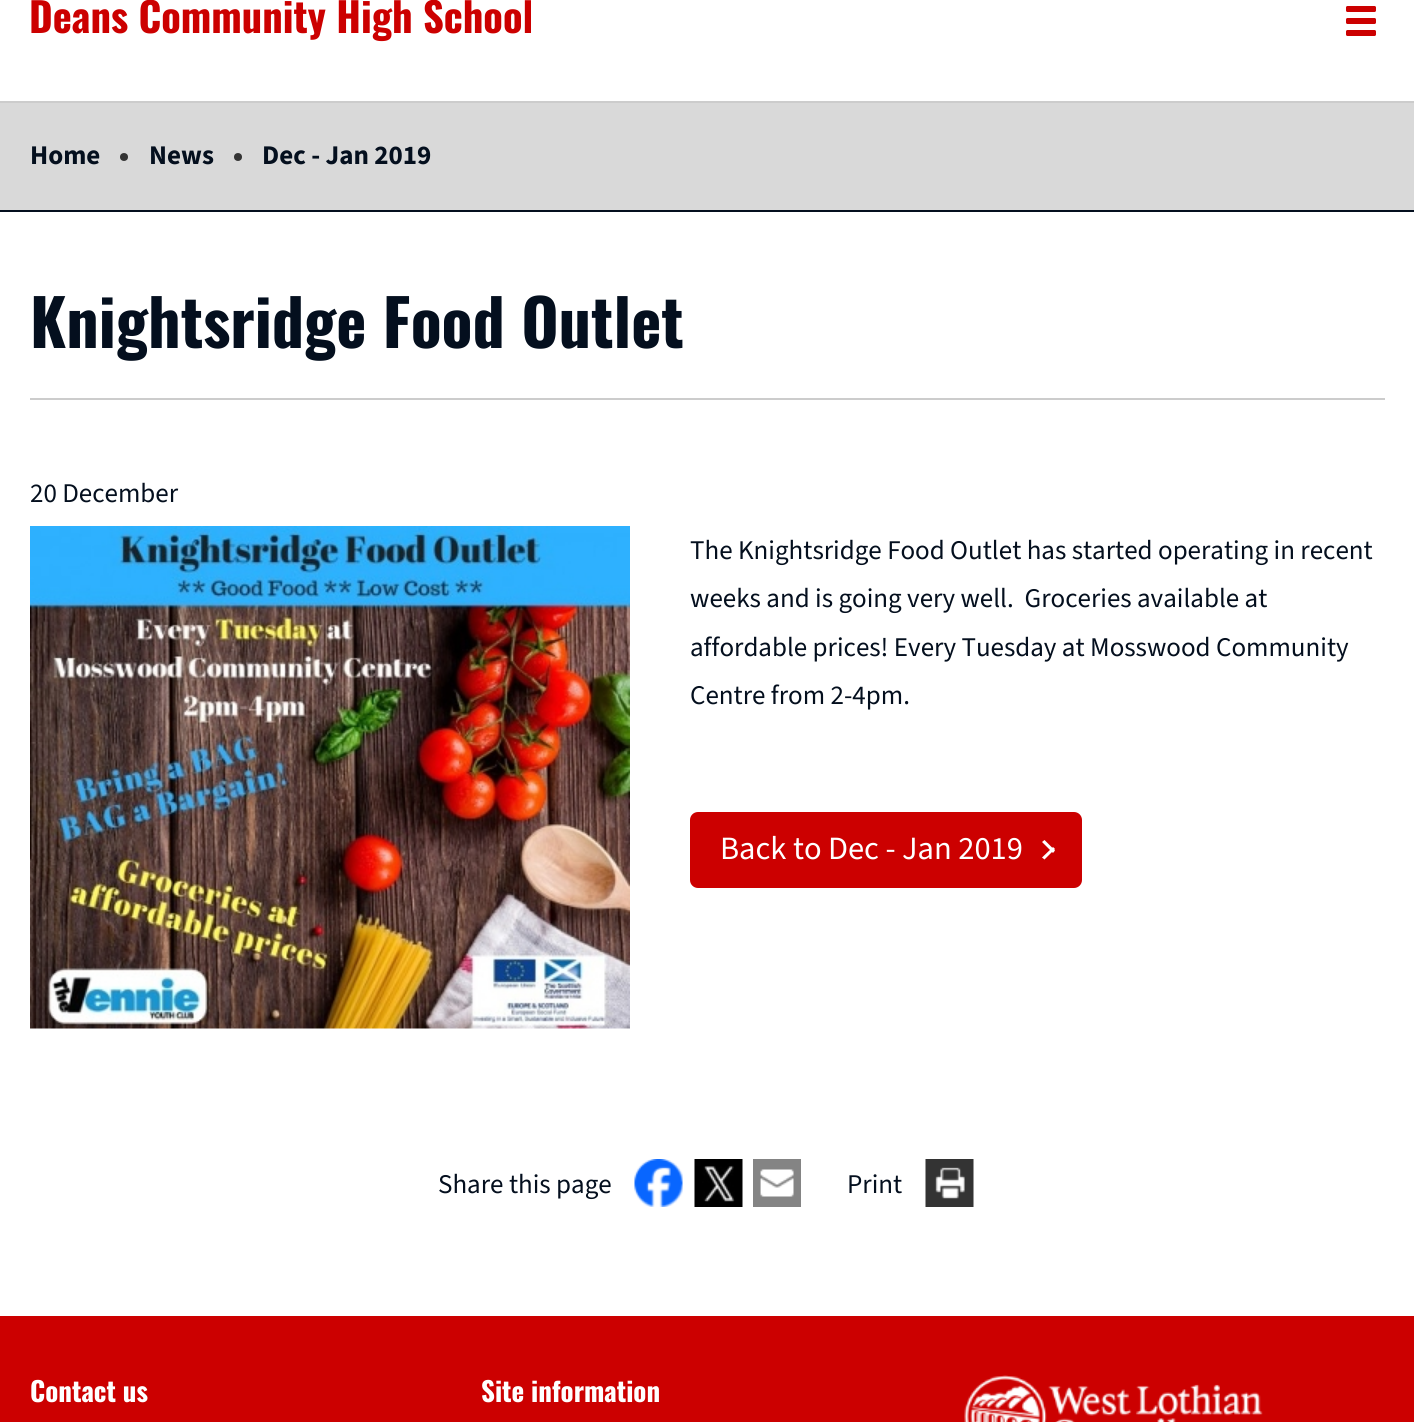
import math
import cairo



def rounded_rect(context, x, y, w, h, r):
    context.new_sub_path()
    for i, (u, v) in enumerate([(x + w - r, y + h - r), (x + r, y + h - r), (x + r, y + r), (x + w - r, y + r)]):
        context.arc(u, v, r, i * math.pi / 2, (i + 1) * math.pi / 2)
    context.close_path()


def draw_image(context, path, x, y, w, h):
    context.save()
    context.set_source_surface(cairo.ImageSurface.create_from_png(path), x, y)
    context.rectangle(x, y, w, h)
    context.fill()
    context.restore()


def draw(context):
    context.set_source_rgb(1, 1, 1)
    context.paint()
    context.set_source_rgb(204 / 255, 204 / 255, 204 / 255)
    context.rectangle(0, 101, 1414, 2)
    context.fill()
    context.set_source_rgb(204 / 255, 0, 0)
    rounded_rect(context, 1346, 6, 30, 6, 1.5)
    context.fill()
    rounded_rect(context, 1346, 18, 30, 6, 1.5)
    context.fill()
    rounded_rect(context, 1346, 30, 30, 6, 1.5)
    context.fill()
    context.set_source_rgb(217 / 255, 217 / 255, 217 / 255)
    context.rectangle(0, 103, 1414, 107)
    context.fill()
    context.set_source_rgb(4 / 255, 15 / 255, 30 / 255)
    context.rectangle(0, 210, 1414, 2)
    context.fill()
    context.set_source_rgb(52 / 255, 52 / 255, 52 / 255)
    context.arc(124, 157, 4, 0, 2 * math.pi)
    context.fill()
    context.arc(238, 157, 4, 0, 2 * math.pi)
    context.fill()
    context.set_source_rgb(204 / 255, 204 / 255, 204 / 255)
    context.rectangle(30, 398, 1355, 2)
    context.fill()
    draw_image(context, "images/1.png", 30, 526, 600, 503)
    context.set_source_rgb(204 / 255, 0, 0)
    rounded_rect(context, 690, 812, 392, 76, 8)
    context.fill()
    context.set_source_rgb(1, 1, 1)
    context.new_path()
    context.move_to(1042, 842)
    context.line_to(1044.5, 840)
    context.line_to(1055, 850.5)
    context.line_to(1053, 853)
    context.close_path()
    context.fill()
    context.new_path()
    context.move_to(1053, 847)
    context.line_to(1055, 849)
    context.line_to(1044.5, 859.5)
    context.line_to(1042, 857.5)
    context.close_path()
    context.fill()
    draw_image(context, "images/2.png", 634, 1159, 49, 48)
    draw_image(context, "images/3.png", 694, 1159, 49, 48)
    draw_image(context, "images/4.png", 753, 1159, 48, 48)
    draw_image(context, "images/5.png", 925, 1159, 49, 48)
    context.set_source_rgb(204 / 255, 0, 0)
    context.rectangle(0, 1316, 1414, 106)
    context.fill()
    draw_image(context, "images/6.png", 964, 1375, 299, 47)
    context.select_font_face("Oswald", cairo.FontSlant.NORMAL, cairo.FontWeight.BOLD)
    context.set_font_size(40.5)
    context.move_to(29, 33)
    context.show_text("Deans Community High School")
    context.select_font_face("Source Sans 3", cairo.FontSlant.NORMAL, cairo.FontWeight.BOLD)
    context.set_font_size(27)
    context.set_source_rgb(4 / 255, 15 / 255, 30 / 255)
    context.move_to(30, 164)
    context.show_text("Home")
    context.move_to(149, 164)
    context.show_text("News")
    context.move_to(262, 164)
    context.show_text("Dec - Jan 2019")
    context.select_font_face("Oswald", cairo.FontSlant.NORMAL, cairo.FontWeight.BOLD)
    context.set_font_size(64.1)
    context.move_to(30, 348)
    context.show_text("Knightsridge Food Outlet")
    context.select_font_face("Source Sans 3")
    context.set_font_size(27)
    context.move_to(30, 502)
    context.show_text("20 December")
    context.move_to(690, 559)
    context.show_text("The Knightsridge Food Outlet has started operating in recent")
    context.move_to(690, 607)
    context.show_text("weeks and is going very well.  Groceries available at")
    context.move_to(690, 656)
    context.show_text("affordable prices! Every Tuesday at Mosswood Community")
    context.move_to(690, 704)
    context.show_text("Centre from 2-4pm.")
    context.set_font_size(32.5)
    context.set_source_rgb(1, 1, 1)
    context.move_to(720, 859)
    context.show_text("Back to Dec - Jan 2019")
    context.set_font_size(27)
    context.set_source_rgb(4 / 255, 15 / 255, 30 / 255)
    context.move_to(438, 1193)
    context.show_text("Share this page")
    context.move_to(847, 1193)
    context.show_text("Print")
    context.select_font_face("Oswald", cairo.FontSlant.NORMAL, cairo.FontWeight.BOLD)
    context.set_source_rgb(1, 1, 1)
    context.move_to(30, 1402)
    context.show_text("Contact us")
    context.move_to(481, 1402)
    context.show_text("Site information")


surface = cairo.ImageSurface(cairo.Format.RGB24, 1414, 1422)
context = cairo.Context(surface)
options = cairo.FontOptions()
options.set_hint_metrics(cairo.HintMetrics.OFF)
options.set_hint_style(cairo.HintStyle.NONE)
context.set_font_options(options)
context.set_miter_limit(4)
draw(context)
surface.write_to_png("out.png")
